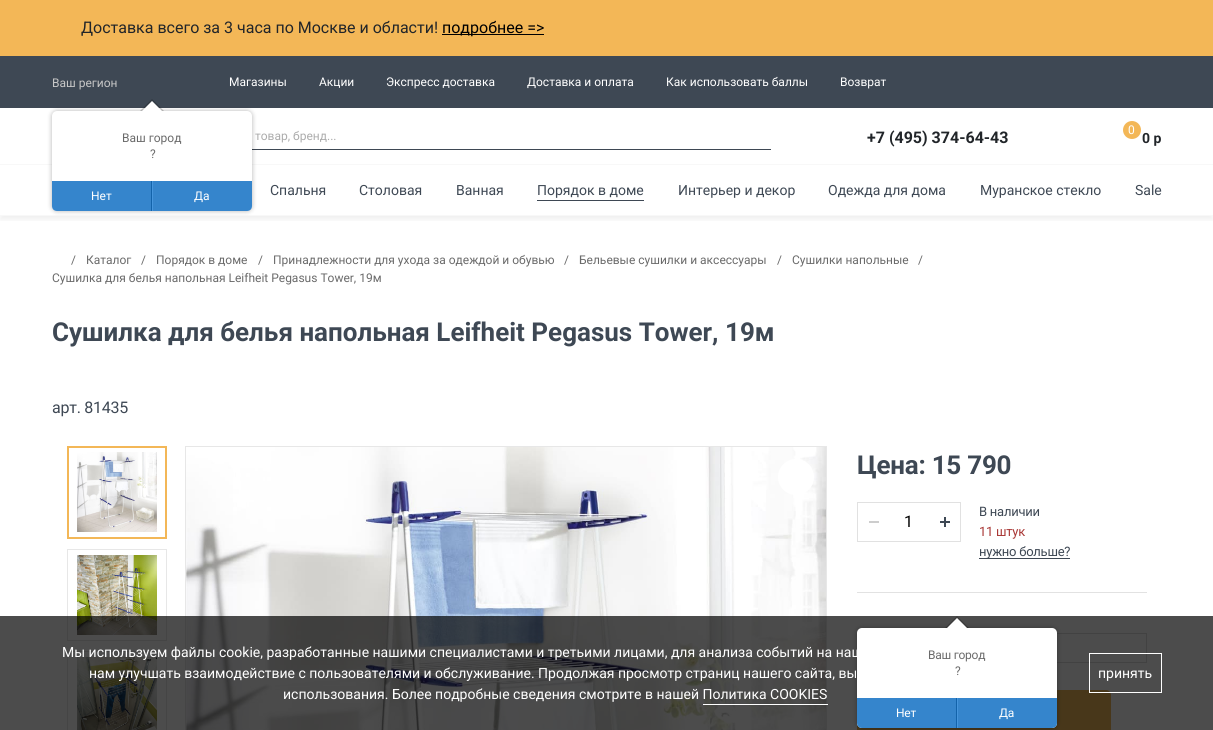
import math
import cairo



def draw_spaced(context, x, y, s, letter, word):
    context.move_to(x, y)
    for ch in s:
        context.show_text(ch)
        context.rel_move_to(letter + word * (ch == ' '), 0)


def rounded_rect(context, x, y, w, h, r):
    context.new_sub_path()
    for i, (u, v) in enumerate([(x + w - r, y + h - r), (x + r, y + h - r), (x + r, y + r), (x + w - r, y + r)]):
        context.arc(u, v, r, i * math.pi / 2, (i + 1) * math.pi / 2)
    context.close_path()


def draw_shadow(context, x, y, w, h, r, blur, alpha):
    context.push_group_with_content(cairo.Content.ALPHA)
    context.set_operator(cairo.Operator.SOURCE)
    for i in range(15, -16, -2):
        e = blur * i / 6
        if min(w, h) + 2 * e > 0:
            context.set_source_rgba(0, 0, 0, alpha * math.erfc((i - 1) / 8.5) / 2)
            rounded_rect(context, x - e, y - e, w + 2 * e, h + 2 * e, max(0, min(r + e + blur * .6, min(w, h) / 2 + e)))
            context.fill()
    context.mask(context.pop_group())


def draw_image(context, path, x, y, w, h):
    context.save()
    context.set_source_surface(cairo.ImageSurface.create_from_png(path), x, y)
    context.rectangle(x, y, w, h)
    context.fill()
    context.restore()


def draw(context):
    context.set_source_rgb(1, 1, 1)
    context.paint()
    context.set_source_rgb(243 / 255, 183 / 255, 87 / 255)
    context.rectangle(0, 0, 1213, 56)
    context.fill()
    context.set_source_rgb(0, 0, 0)
    context.rectangle(442, 34, 102, 1)
    context.fill()
    context.set_source_rgb(62 / 255, 72 / 255, 84 / 255)
    context.rectangle(0, 56, 1213, 52)
    context.fill()
    context.rectangle(252, 149, 519, 1)
    context.fill()
    context.save()
    context.rectangle(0, 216, 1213, 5)
    context.clip()
    context.set_source_rgb(0, 0, 0)
    draw_shadow(context, 0, 168, 1213, 52, 0, 2.5, 0.06)
    context.restore()
    context.set_source_rgb(248 / 255, 248 / 255, 248 / 255)
    context.rectangle(0, 164, 1213, 1)
    context.fill()
    context.rectangle(0, 215, 1213, 1)
    context.fill()
    context.set_source_rgb(0, 0, 0)
    draw_shadow(context, 52, 111, 200, 100, 5, 2.5, 0.3)
    context.set_source_rgb(1, 1, 1)
    rounded_rect(context, 52, 111, 200, 100, 5)
    context.fill()
    context.set_source_rgba(0, 0, 0, 0.2)
    context.new_path()
    context.move_to(164, 111)
    context.line_to(140, 111)
    context.line_to(152, 99)
    context.close_path()
    context.fill()
    context.set_source_rgb(1, 1, 1)
    context.new_path()
    context.move_to(162, 111)
    context.line_to(142, 111)
    context.line_to(152, 101)
    context.close_path()
    context.fill()
    context.set_source_rgb(53 / 255, 133 / 255, 204 / 255)
    context.new_path()
    context.move_to(52, 181)
    context.line_to(152, 181)
    context.line_to(152, 211)
    context.line_to(57, 211)
    context.curve_to(54, 211, 52, 209, 52, 206)
    context.close_path()
    context.fill()
    context.set_source_rgb(19 / 255, 99 / 255, 170 / 255)
    context.rectangle(151, 181, 1, 30)
    context.fill()
    context.set_source_rgb(53 / 255, 133 / 255, 204 / 255)
    context.new_path()
    context.move_to(152, 181)
    context.line_to(252, 181)
    context.line_to(252, 206)
    context.curve_to(252, 209, 250, 211, 247, 211)
    context.line_to(152, 211)
    context.close_path()
    context.fill()
    context.set_source_rgb(70 / 255, 150 / 255, 221 / 255)
    context.rectangle(152, 181, 1, 30)
    context.fill()
    context.set_source_rgb(243 / 255, 183 / 255, 87 / 255)
    context.arc(1132, 130, 9, 0, 2 * math.pi)
    context.fill()
    context.set_source_rgb(62 / 255, 72 / 255, 84 / 255)
    context.rectangle(537, 200, 107, 1)
    context.fill()
    context.rectangle(68, 447, 98, 91)
    context.set_source_rgb(243 / 255, 183 / 255, 87 / 255)
    context.stroke()
    draw_image(context, "images/1.png", 77, 452, 80, 80)
    context.rectangle(67.5, 549.5, 99, 91)
    context.set_source_rgb(231 / 255, 231 / 255, 231 / 255)
    context.set_line_width(1)
    context.stroke()
    draw_image(context, "images/2.png", 77, 555, 80, 80)
    context.rectangle(67.5, 651.5, 99, 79)
    context.stroke()
    draw_image(context, "images/3.png", 77, 657, 80, 73)
    context.rectangle(185.5, 446.5, 641, 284)
    context.stroke()
    draw_image(context, "images/4.png", 186, 447, 640, 283)
    context.set_source_rgb(1, 1, 1)
    context.arc(796, 477, 18, 0, 2 * math.pi)
    context.fill()
    context.rectangle(857.5, 502.5, 103, 39)
    context.set_source_rgb(225 / 255, 225 / 255, 225 / 255)
    context.stroke()
    context.set_source_rgb(205 / 255, 205 / 255, 205 / 255)
    context.rectangle(869, 521, 10, 2)
    context.fill()
    context.set_source_rgb(62 / 255, 72 / 255, 84 / 255)
    context.rectangle(944, 517, 2, 10)
    context.fill()
    context.rectangle(940, 521, 10, 2)
    context.fill()
    context.rectangle(979, 558, 91, 1)
    context.fill()
    context.set_source_rgb(226 / 255, 226 / 255, 226 / 255)
    context.rectangle(857, 592, 290, 1)
    context.fill()
    context.rectangle(857.5, 633.5, 289, 29)
    context.set_source_rgb(221 / 255, 221 / 255, 221 / 255)
    context.stroke()
    context.set_source_rgb(243 / 255, 183 / 255, 87 / 255)
    rounded_rect(context, 858, 691, 252, 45, 4)
    context.fill_preserve()
    context.set_line_width(2)
    context.stroke()
    context.set_source_rgba(0, 0, 0, 0.7)
    context.rectangle(0, 616, 1213, 114)
    context.fill()
    context.set_source_rgb(0, 0, 0)
    draw_shadow(context, 857, 628, 200, 100, 5, 2.5, 0.3)
    context.set_source_rgb(1, 1, 1)
    rounded_rect(context, 857, 628, 200, 100, 5)
    context.fill()
    context.set_source_rgba(0, 0, 0, 0.2)
    context.new_path()
    context.move_to(969, 628)
    context.line_to(945, 628)
    context.line_to(957, 616)
    context.close_path()
    context.fill()
    context.set_source_rgb(1, 1, 1)
    context.new_path()
    context.move_to(967, 628)
    context.line_to(947, 628)
    context.line_to(957, 618)
    context.close_path()
    context.fill()
    context.set_source_rgb(53 / 255, 133 / 255, 204 / 255)
    context.new_path()
    context.move_to(857, 698)
    context.line_to(957, 698)
    context.line_to(957, 728)
    context.line_to(862, 728)
    context.curve_to(859, 728, 857, 726, 857, 723)
    context.close_path()
    context.fill()
    context.set_source_rgb(19 / 255, 99 / 255, 170 / 255)
    context.rectangle(956, 698, 1, 30)
    context.fill()
    context.set_source_rgb(53 / 255, 133 / 255, 204 / 255)
    context.new_path()
    context.move_to(957, 698)
    context.line_to(1057, 698)
    context.line_to(1057, 723)
    context.curve_to(1057, 726, 1055, 728, 1052, 728)
    context.line_to(957, 728)
    context.close_path()
    context.fill()
    context.set_source_rgb(70 / 255, 150 / 255, 221 / 255)
    context.rectangle(957, 698, 1, 30)
    context.fill()
    context.set_source_rgb(1, 1, 1)
    context.rectangle(703, 704, 125, 1)
    context.fill()
    context.rectangle(1089.5, 653.5, 72, 39)
    context.set_line_width(1)
    context.stroke()
    context.select_font_face("Roboto")
    context.set_font_size(16)
    context.set_source_rgb(33 / 255, 37 / 255, 41 / 255)
    context.move_to(81, 33)
    context.show_text("Доставка всего за 3 часа по Москве и области!")
    context.set_source_rgb(0, 0, 0)
    context.move_to(442, 33)
    context.show_text("подробнее =>")
    context.set_font_size(12)
    context.set_source_rgb(199 / 255, 199 / 255, 199 / 255)
    context.move_to(52, 87)
    context.show_text("Ваш регион")
    context.set_source_rgb(106 / 255, 106 / 255, 106 / 255)
    context.move_to(122, 142)
    context.show_text("Ваш город")
    context.move_to(150, 158)
    context.show_text("?")
    context.set_source_rgb(1, 1, 1)
    context.move_to(91, 200)
    context.show_text("Нет")
    context.move_to(194, 200)
    context.show_text("Да")
    context.move_to(229, 86)
    context.show_text("Магазины")
    context.move_to(319, 86)
    context.show_text("Акции")
    context.move_to(386, 86)
    context.show_text("Экспресс доставка")
    context.move_to(527, 86)
    context.show_text("Доставка и оплата")
    context.move_to(666, 86)
    context.show_text("Как использовать баллы")
    context.move_to(840, 86)
    context.show_text("Возврат")
    context.set_source_rgb(172 / 255, 172 / 255, 172 / 255)
    context.move_to(255, 140)
    context.show_text("товар, бренд...")
    context.select_font_face("Roboto", cairo.FontSlant.NORMAL, cairo.FontWeight.BOLD)
    context.set_font_size(16)
    context.set_source_rgb(33 / 255, 37 / 255, 41 / 255)
    context.move_to(867, 143)
    context.show_text("+7 (495) 374-64-43")
    context.select_font_face("Roboto")
    context.set_font_size(12)
    context.set_source_rgb(1, 1, 1)
    context.move_to(1128, 134)
    context.show_text("0")
    context.select_font_face("Roboto", cairo.FontSlant.NORMAL, cairo.FontWeight.BOLD)
    context.set_font_size(14)
    context.set_source_rgb(33 / 255, 37 / 255, 41 / 255)
    context.move_to(1142, 143)
    context.show_text("0 р")
    context.select_font_face("Roboto")
    context.set_source_rgb(62 / 255, 72 / 255, 84 / 255)
    context.move_to(270, 195)
    context.show_text("Спальня")
    context.move_to(359, 195)
    context.show_text("Столовая")
    context.move_to(456, 195)
    context.show_text("Ванная")
    context.move_to(537, 195)
    context.show_text("Порядок в доме")
    context.move_to(678, 195)
    context.show_text("Интерьер и декор")
    context.move_to(828, 195)
    context.show_text("Одежда для дома")
    context.move_to(980, 195)
    context.show_text("Муранское стекло")
    context.move_to(1135, 195)
    context.show_text("Sale")
    context.set_font_size(12)
    context.set_source_rgb(106 / 255, 106 / 255, 106 / 255)
    context.move_to(71, 264)
    context.show_text("/")
    context.move_to(86, 264)
    context.show_text("Каталог")
    context.move_to(141, 264)
    context.show_text("/")
    context.move_to(156, 264)
    context.show_text("Порядок в доме")
    context.move_to(258, 264)
    context.show_text("/")
    context.move_to(273, 264)
    context.show_text("Принадлежности для ухода за одеждой и обувью")
    context.move_to(564, 264)
    context.show_text("/")
    context.move_to(579, 264)
    context.show_text("Бельевые сушилки и аксессуары")
    context.move_to(777, 264)
    context.show_text("/")
    context.move_to(792, 264)
    context.show_text("Сушилки напольные")
    context.move_to(918, 264)
    context.show_text("/")
    context.move_to(52, 282)
    context.show_text("Сушилка для белья напольная Leifheit Pegasus Tower, 19м")
    context.select_font_face("Roboto", cairo.FontSlant.NORMAL, cairo.FontWeight.BOLD)
    context.set_font_size(26)
    context.set_source_rgb(62 / 255, 72 / 255, 84 / 255)
    context.move_to(52, 341)
    context.show_text("Сушилка для белья напольная Leifheit Pegasus Tower, 19м")
    context.select_font_face("Roboto")
    context.set_font_size(16)
    draw_spaced(context, 52, 413, "арт. 81435", -0.25, 0)
    context.select_font_face("Roboto", cairo.FontSlant.NORMAL, cairo.FontWeight.BOLD)
    context.set_font_size(26)
    draw_spaced(context, 857, 474, "Цена: 15 790", -0.25, 0)
    context.select_font_face("Roboto")
    context.set_font_size(16)
    context.set_source_rgb(0, 0, 0)
    context.move_to(904, 527)
    context.show_text("1")
    context.set_font_size(13)
    context.set_source_rgb(62 / 255, 72 / 255, 84 / 255)
    draw_spaced(context, 979, 516, "В наличии", -0.25, 0)
    context.set_source_rgb(169 / 255, 56 / 255, 54 / 255)
    draw_spaced(context, 979, 536, "11 штук", -0.25, 0)
    context.set_source_rgb(62 / 255, 72 / 255, 84 / 255)
    draw_spaced(context, 979, 556, "нужно больше?", -0.25, 0)
    context.set_font_size(12)
    context.set_source_rgb(106 / 255, 106 / 255, 106 / 255)
    draw_spaced(context, 928, 659, "Ваш город", -0.25, 0)
    draw_spaced(context, 955, 675, "?", -0.25, 0)
    context.set_source_rgb(1, 1, 1)
    draw_spaced(context, 896, 717, "Нет", -0.25, 0)
    draw_spaced(context, 999, 717, "Да", -0.25, 0)
    context.set_font_size(14)
    context.move_to(62, 657)
    context.show_text("Мы используем файлы cookie, разработанные нашими специалистами и третьими лицами, для анализа событий на наш")
    context.move_to(89, 678)
    context.show_text("нам улучшать взаимодействие с пользователями и обслуживание. Продолжая просмотр страниц нашего сайта, вы")
    context.move_to(283, 699)
    context.show_text("использования. Более подробные сведения смотрите в нашей Политика COOKIES")
    context.move_to(1098, 678)
    context.show_text("принять")


surface = cairo.ImageSurface(cairo.Format.RGB24, 1213, 730)
context = cairo.Context(surface)
options = cairo.FontOptions()
options.set_hint_metrics(cairo.HintMetrics.OFF)
options.set_hint_style(cairo.HintStyle.NONE)
context.set_font_options(options)
context.set_miter_limit(4)
draw(context)
surface.write_to_png("out.png")
